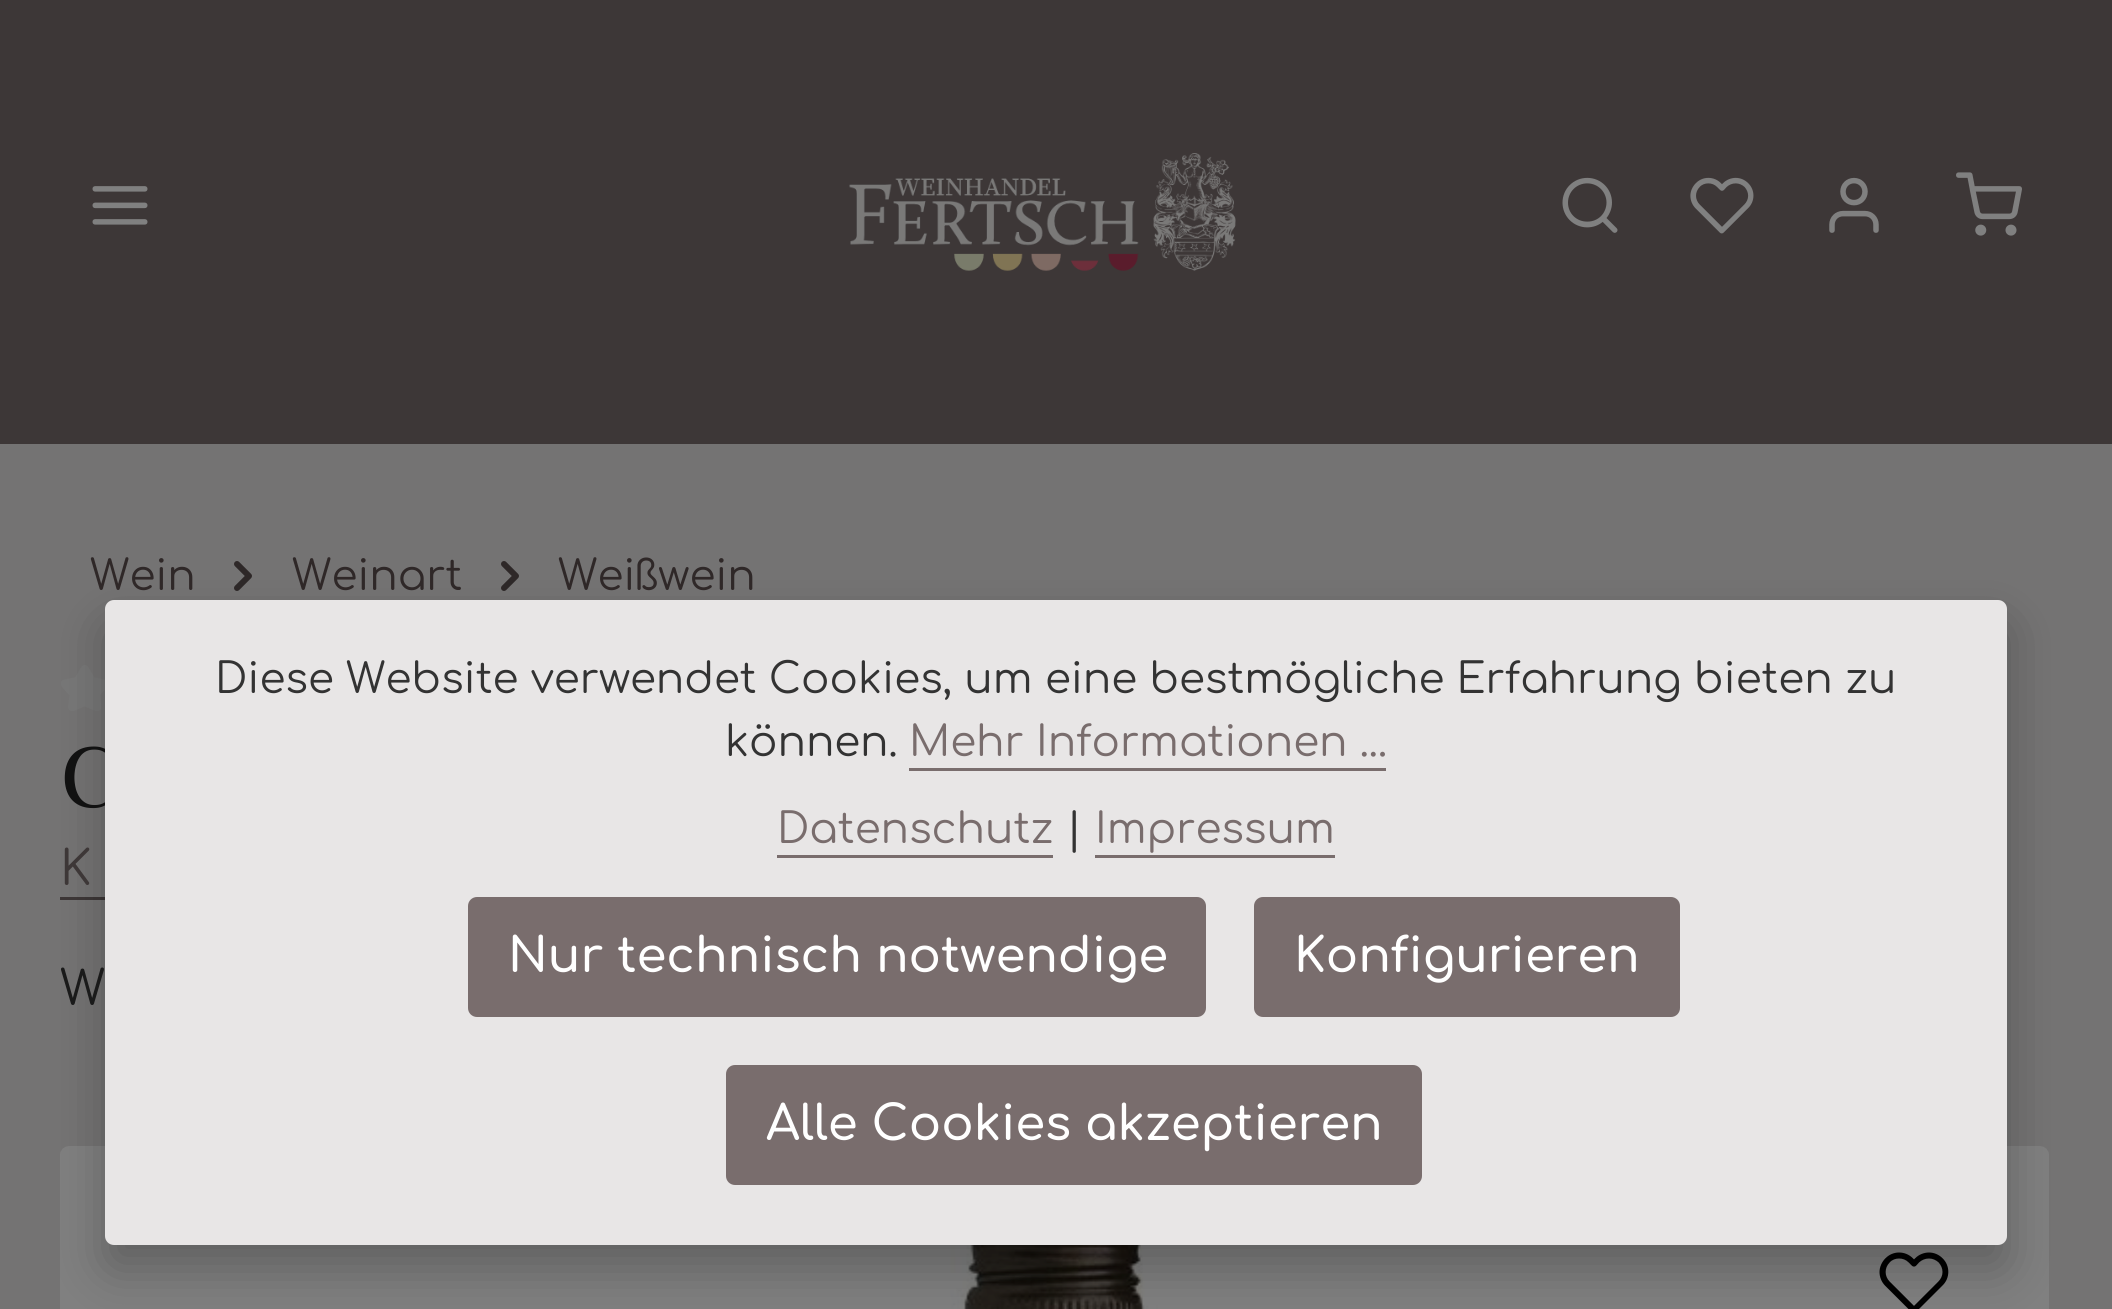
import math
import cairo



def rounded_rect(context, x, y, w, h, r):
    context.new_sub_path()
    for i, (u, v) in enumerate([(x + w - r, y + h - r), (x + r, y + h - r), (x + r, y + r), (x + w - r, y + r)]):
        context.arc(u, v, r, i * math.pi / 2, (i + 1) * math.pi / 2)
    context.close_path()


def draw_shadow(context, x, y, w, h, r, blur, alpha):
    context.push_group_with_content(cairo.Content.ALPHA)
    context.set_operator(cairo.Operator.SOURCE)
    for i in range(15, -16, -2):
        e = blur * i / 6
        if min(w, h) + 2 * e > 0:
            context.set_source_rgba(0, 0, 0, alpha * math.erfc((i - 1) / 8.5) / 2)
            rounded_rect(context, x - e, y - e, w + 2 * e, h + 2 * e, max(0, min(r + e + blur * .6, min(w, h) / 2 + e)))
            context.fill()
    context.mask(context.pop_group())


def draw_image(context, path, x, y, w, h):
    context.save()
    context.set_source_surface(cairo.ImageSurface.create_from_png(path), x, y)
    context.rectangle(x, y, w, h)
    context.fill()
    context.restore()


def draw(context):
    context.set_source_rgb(61 / 255, 55 / 255, 55 / 255)
    context.paint()
    draw_image(context, "images/1.png", 92, 186, 56, 39)
    draw_image(context, "images/2.png", 849, 153, 387, 118)
    draw_image(context, "images/3.png", 1562, 177, 56, 56)
    draw_image(context, "images/4.png", 1690, 177, 64, 57)
    draw_image(context, "images/5.png", 1829, 177, 50, 56)
    draw_image(context, "images/6.png", 1956, 172, 66, 64)
    context.set_source_rgb(116 / 255, 115 / 255, 115 / 255)
    context.rectangle(0, 444, 2112, 865)
    context.fill()
    draw_image(context, "images/7.png", 234, 561, 18, 30)
    draw_image(context, "images/7.png", 501, 561, 18, 30)
    draw_image(context, "images/8.png", 61, 665, 44, 46)
    context.set_source_rgb(61 / 255, 55 / 255, 55 / 255)
    context.rectangle(60, 897, 45, 3)
    context.fill()
    draw_image(context, "images/9.png", 60, 1146, 1989, 163)
    draw_image(context, "images/10.png", 1879, 1252, 70, 57)
    context.set_source_rgb(0, 0, 0)
    draw_shadow(context, 105, 624, 1902, 645, 9, 24, 0.25)
    context.select_font_face("Comfortaa")
    context.set_font_size(42)
    context.set_source_rgb(47 / 255, 40 / 255, 40 / 255)
    context.move_to(90, 590)
    context.show_text("Wein")
    context.move_to(292, 590)
    context.show_text("Weinart")
    context.move_to(558, 590)
    context.show_text("Weißwein")
    context.select_font_face("Frank Ruhl Libre")
    context.set_font_size(90)
    context.set_source_rgb(17 / 255, 17 / 255, 17 / 255)
    context.move_to(60, 807)
    context.show_text("C")
    context.select_font_face("Comfortaa")
    context.set_font_size(48)
    context.set_source_rgb(61 / 255, 55 / 255, 55 / 255)
    context.move_to(60, 885)
    context.show_text("K")
    context.set_source_rgb(26 / 255, 26 / 255, 26 / 255)
    context.move_to(60, 1005)
    context.show_text("W")
    context.set_source_rgb(232 / 255, 230 / 255, 230 / 255)
    rounded_rect(context, 105, 600, 1902, 645, 9)
    context.fill()
    context.set_font_size(42)
    context.set_source_rgb(51 / 255, 51 / 255, 51 / 255)
    context.move_to(215, 693)
    context.show_text("Diese Website verwendet Cookies, um eine bestmögliche Erfahrung bieten zu")
    context.move_to(725, 756)
    context.show_text("können.")
    context.set_source_rgb(121 / 255, 109 / 255, 109 / 255)
    context.move_to(909, 756)
    context.show_text("Mehr Informationen ...")
    context.rectangle(909, 768, 477, 3)
    context.fill()
    context.move_to(777, 843)
    context.show_text("Datenschutz")
    context.rectangle(777, 855, 276, 3)
    context.fill()
    context.set_source_rgb(51 / 255, 51 / 255, 51 / 255)
    context.move_to(1066, 843)
    context.show_text("|")
    context.set_source_rgb(121 / 255, 109 / 255, 109 / 255)
    context.move_to(1095, 843)
    context.show_text("Impressum")
    context.rectangle(1095, 855, 240, 3)
    context.fill()
    rounded_rect(context, 469.5, 898.5, 735, 117, 7.5)
    context.fill_preserve()
    context.set_line_width(3)
    context.stroke()
    context.select_font_face("Comfortaa SemiBold")
    context.set_font_size(48)
    context.set_source_rgb(1, 1, 1)
    context.move_to(508, 972)
    context.show_text("Nur technisch notwendige")
    context.set_source_rgb(121 / 255, 109 / 255, 109 / 255)
    rounded_rect(context, 1255.5, 898.5, 423, 117, 7.5)
    context.fill_preserve()
    context.stroke()
    context.set_source_rgb(1, 1, 1)
    context.move_to(1294, 972)
    context.show_text("Konfigurieren")
    context.set_source_rgb(121 / 255, 109 / 255, 109 / 255)
    rounded_rect(context, 727.5, 1066.5, 693, 117, 7.5)
    context.fill_preserve()
    context.stroke()
    context.set_source_rgb(1, 1, 1)
    context.move_to(766, 1140)
    context.show_text("Alle Cookies akzeptieren")


surface = cairo.ImageSurface(cairo.Format.RGB24, 2112, 1309)
context = cairo.Context(surface)
options = cairo.FontOptions()
options.set_hint_metrics(cairo.HintMetrics.OFF)
options.set_hint_style(cairo.HintStyle.NONE)
context.set_font_options(options)
context.set_miter_limit(4)
draw(context)
surface.write_to_png("out.png")
